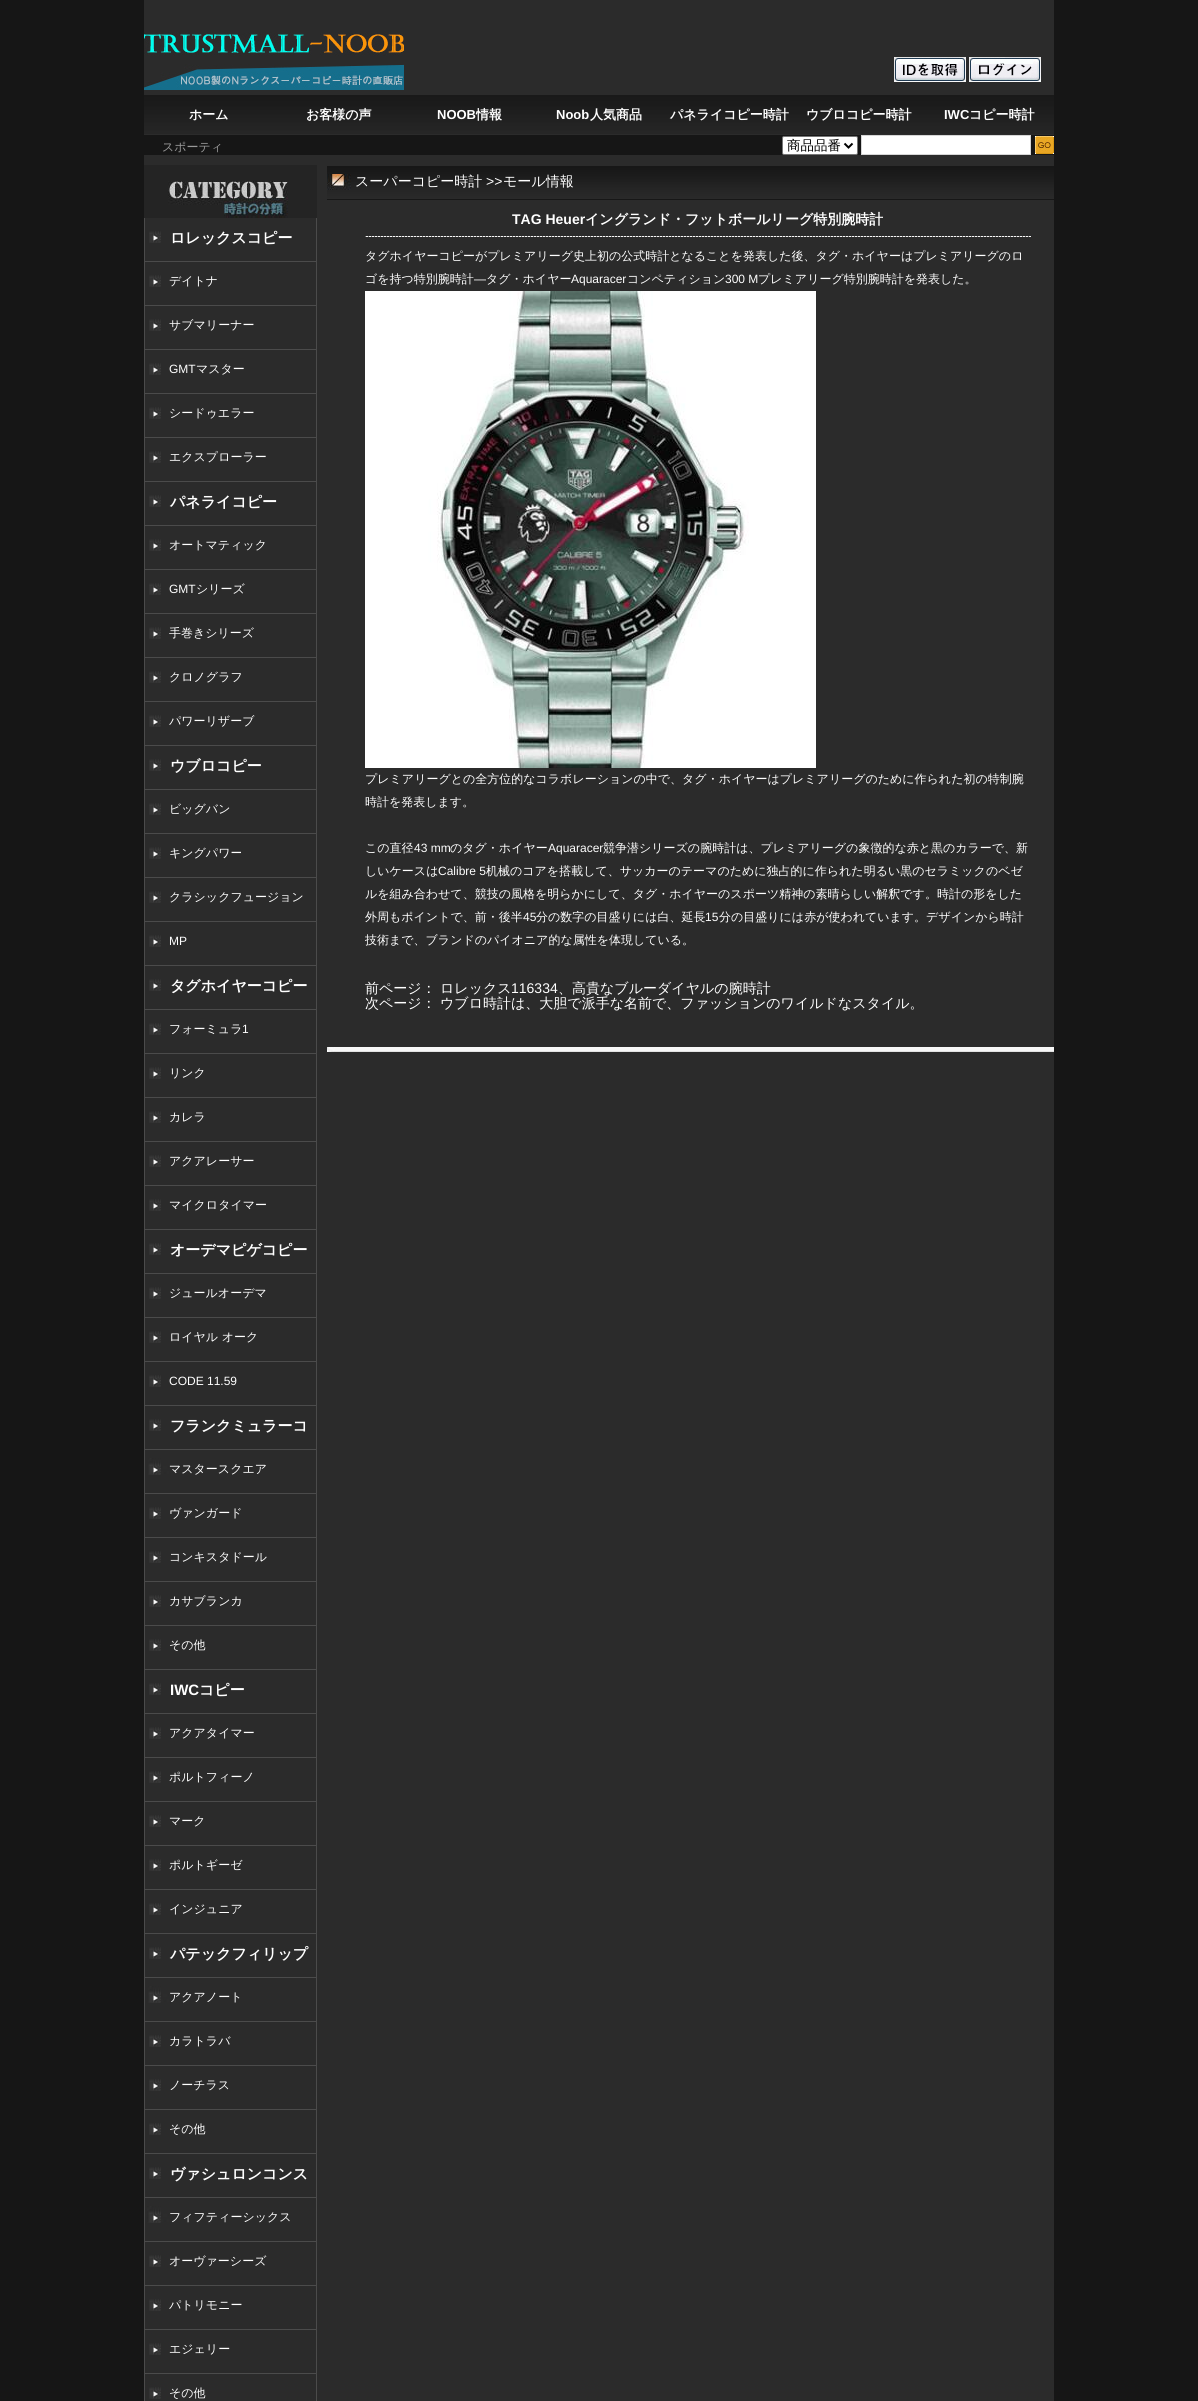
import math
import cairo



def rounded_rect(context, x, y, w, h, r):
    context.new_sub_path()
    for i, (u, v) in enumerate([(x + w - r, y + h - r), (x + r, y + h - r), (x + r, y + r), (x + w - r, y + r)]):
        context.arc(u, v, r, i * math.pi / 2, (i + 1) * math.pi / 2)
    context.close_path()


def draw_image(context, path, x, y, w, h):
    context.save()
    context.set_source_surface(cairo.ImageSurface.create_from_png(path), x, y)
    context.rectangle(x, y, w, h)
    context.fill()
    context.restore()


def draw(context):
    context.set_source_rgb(22 / 255, 22 / 255, 22 / 255)
    context.paint()
    context.set_source_rgb(43 / 255, 43 / 255, 43 / 255)
    context.rectangle(144, 0, 910, 135)
    context.fill()
    draw_image(context, "images/1.png", 144, 32, 260, 58)
    draw_image(context, "images/2.png", 894, 57, 72, 25)
    draw_image(context, "images/3.png", 969, 57, 72, 25)
    draw_image(context, "images/4.png", 144, 95, 910, 39)
    context.set_source_rgb(1, 1, 1)
    rounded_rect(context, 782.5, 136.5, 75, 18, 1.5)
    context.fill_preserve()
    context.set_source_rgb(118 / 255, 118 / 255, 118 / 255)
    context.set_line_width(1)
    context.stroke()
    context.new_path()
    context.move_to(844.5, 143.5)
    context.line_to(848.5, 147.5)
    context.line_to(852.5, 143.5)
    context.set_source_rgb(0, 0, 0)
    context.set_line_width(2)
    context.stroke()
    context.set_source_rgb(1, 1, 1)
    context.rectangle(861.5, 135.5, 169, 19)
    context.fill_preserve()
    context.set_source_rgb(214 / 255, 214 / 255, 214 / 255)
    context.set_line_width(1)
    context.stroke()
    draw_image(context, "images/5.png", 1035, 136, 19, 18)
    context.set_source_rgb(43 / 255, 43 / 255, 43 / 255)
    context.rectangle(144, 155, 910, 2246)
    context.fill()
    draw_image(context, "images/6.png", 144, 165, 173, 53)
    draw_image(context, "images/7.png", 149, 231, 12, 12)
    context.set_source_rgb(75 / 255, 75 / 255, 75 / 255)
    context.rectangle(316, 218, 1, 2156)
    context.fill()
    context.rectangle(144, 261, 173, 1)
    context.fill()
    context.rectangle(144, 218, 1, 44)
    context.fill()
    draw_image(context, "images/7.png", 149, 275, 12, 12)
    context.rectangle(144, 305, 173, 1)
    context.fill()
    context.rectangle(144, 262, 1, 44)
    context.fill()
    draw_image(context, "images/7.png", 149, 319, 12, 12)
    context.rectangle(144, 349, 173, 1)
    context.fill()
    context.rectangle(144, 306, 1, 44)
    context.fill()
    draw_image(context, "images/7.png", 149, 363, 12, 12)
    context.rectangle(144, 393, 173, 1)
    context.fill()
    context.rectangle(144, 350, 1, 44)
    context.fill()
    draw_image(context, "images/7.png", 149, 407, 12, 12)
    context.rectangle(144, 437, 173, 1)
    context.fill()
    context.rectangle(144, 394, 1, 44)
    context.fill()
    draw_image(context, "images/7.png", 149, 451, 12, 12)
    context.rectangle(144, 481, 173, 1)
    context.fill()
    context.rectangle(144, 438, 1, 44)
    context.fill()
    draw_image(context, "images/7.png", 149, 495, 12, 12)
    context.rectangle(144, 525, 173, 1)
    context.fill()
    context.rectangle(144, 482, 1, 44)
    context.fill()
    draw_image(context, "images/7.png", 149, 539, 12, 12)
    context.rectangle(144, 569, 173, 1)
    context.fill()
    context.rectangle(144, 526, 1, 44)
    context.fill()
    draw_image(context, "images/7.png", 149, 583, 12, 12)
    context.rectangle(144, 613, 173, 1)
    context.fill()
    context.rectangle(144, 570, 1, 44)
    context.fill()
    draw_image(context, "images/7.png", 149, 627, 12, 12)
    context.rectangle(144, 657, 173, 1)
    context.fill()
    context.rectangle(144, 614, 1, 44)
    context.fill()
    draw_image(context, "images/7.png", 149, 671, 12, 12)
    context.rectangle(144, 701, 173, 1)
    context.fill()
    context.rectangle(144, 658, 1, 44)
    context.fill()
    draw_image(context, "images/7.png", 149, 715, 12, 12)
    context.rectangle(144, 745, 173, 1)
    context.fill()
    context.rectangle(144, 702, 1, 44)
    context.fill()
    draw_image(context, "images/7.png", 149, 759, 12, 12)
    context.rectangle(144, 789, 173, 1)
    context.fill()
    context.rectangle(144, 746, 1, 44)
    context.fill()
    draw_image(context, "images/7.png", 149, 803, 12, 12)
    context.rectangle(144, 833, 173, 1)
    context.fill()
    context.rectangle(144, 790, 1, 44)
    context.fill()
    draw_image(context, "images/7.png", 149, 847, 12, 12)
    context.rectangle(144, 877, 173, 1)
    context.fill()
    context.rectangle(144, 834, 1, 44)
    context.fill()
    draw_image(context, "images/7.png", 149, 891, 12, 12)
    context.rectangle(144, 921, 173, 1)
    context.fill()
    context.rectangle(144, 878, 1, 44)
    context.fill()
    draw_image(context, "images/7.png", 149, 935, 12, 12)
    context.rectangle(144, 965, 173, 1)
    context.fill()
    context.rectangle(144, 922, 1, 44)
    context.fill()
    draw_image(context, "images/7.png", 149, 979, 12, 12)
    context.rectangle(144, 1009, 173, 1)
    context.fill()
    context.rectangle(144, 966, 1, 44)
    context.fill()
    draw_image(context, "images/7.png", 149, 1023, 12, 12)
    context.rectangle(144, 1053, 173, 1)
    context.fill()
    context.rectangle(144, 1010, 1, 44)
    context.fill()
    draw_image(context, "images/7.png", 149, 1067, 12, 12)
    context.rectangle(144, 1097, 173, 1)
    context.fill()
    context.rectangle(144, 1054, 1, 44)
    context.fill()
    draw_image(context, "images/7.png", 149, 1111, 12, 12)
    context.rectangle(144, 1141, 173, 1)
    context.fill()
    context.rectangle(144, 1098, 1, 44)
    context.fill()
    draw_image(context, "images/7.png", 149, 1155, 12, 12)
    context.rectangle(144, 1185, 173, 1)
    context.fill()
    context.rectangle(144, 1142, 1, 44)
    context.fill()
    draw_image(context, "images/7.png", 149, 1199, 12, 12)
    context.rectangle(144, 1229, 173, 1)
    context.fill()
    context.rectangle(144, 1186, 1, 44)
    context.fill()
    draw_image(context, "images/7.png", 149, 1243, 12, 12)
    context.rectangle(144, 1273, 173, 1)
    context.fill()
    context.rectangle(144, 1230, 1, 44)
    context.fill()
    draw_image(context, "images/7.png", 149, 1287, 12, 12)
    context.rectangle(144, 1317, 173, 1)
    context.fill()
    context.rectangle(144, 1274, 1, 44)
    context.fill()
    draw_image(context, "images/7.png", 149, 1331, 12, 12)
    context.rectangle(144, 1361, 173, 1)
    context.fill()
    context.rectangle(144, 1318, 1, 44)
    context.fill()
    draw_image(context, "images/7.png", 149, 1375, 12, 12)
    context.rectangle(144, 1405, 173, 1)
    context.fill()
    context.rectangle(144, 1362, 1, 44)
    context.fill()
    draw_image(context, "images/7.png", 149, 1419, 12, 12)
    context.rectangle(144, 1449, 173, 1)
    context.fill()
    context.rectangle(144, 1406, 1, 44)
    context.fill()
    draw_image(context, "images/8.png", 148, 1458, 27, 17)
    context.rectangle(144, 1493, 173, 1)
    context.fill()
    context.rectangle(144, 1450, 1, 44)
    context.fill()
    draw_image(context, "images/7.png", 149, 1507, 12, 12)
    context.rectangle(144, 1537, 173, 1)
    context.fill()
    context.rectangle(144, 1494, 1, 44)
    context.fill()
    draw_image(context, "images/7.png", 149, 1551, 12, 12)
    context.rectangle(144, 1581, 173, 1)
    context.fill()
    context.rectangle(144, 1538, 1, 44)
    context.fill()
    draw_image(context, "images/7.png", 149, 1595, 12, 12)
    context.rectangle(144, 1625, 173, 1)
    context.fill()
    context.rectangle(144, 1582, 1, 44)
    context.fill()
    draw_image(context, "images/7.png", 149, 1639, 12, 12)
    context.rectangle(144, 1669, 173, 1)
    context.fill()
    context.rectangle(144, 1626, 1, 44)
    context.fill()
    draw_image(context, "images/7.png", 149, 1683, 12, 12)
    context.rectangle(144, 1713, 173, 1)
    context.fill()
    context.rectangle(144, 1670, 1, 44)
    context.fill()
    draw_image(context, "images/7.png", 149, 1727, 12, 12)
    context.rectangle(144, 1757, 173, 1)
    context.fill()
    context.rectangle(144, 1714, 1, 44)
    context.fill()
    draw_image(context, "images/7.png", 149, 1771, 12, 12)
    context.rectangle(144, 1801, 173, 1)
    context.fill()
    context.rectangle(144, 1758, 1, 44)
    context.fill()
    draw_image(context, "images/7.png", 149, 1815, 12, 12)
    context.rectangle(144, 1845, 173, 1)
    context.fill()
    context.rectangle(144, 1802, 1, 44)
    context.fill()
    draw_image(context, "images/7.png", 149, 1859, 12, 12)
    context.rectangle(144, 1889, 173, 1)
    context.fill()
    context.rectangle(144, 1846, 1, 44)
    context.fill()
    draw_image(context, "images/7.png", 149, 1903, 12, 12)
    context.rectangle(144, 1933, 173, 1)
    context.fill()
    context.rectangle(144, 1890, 1, 44)
    context.fill()
    draw_image(context, "images/7.png", 149, 1947, 12, 12)
    context.rectangle(144, 1977, 173, 1)
    context.fill()
    context.rectangle(144, 1934, 1, 44)
    context.fill()
    draw_image(context, "images/9.png", 148, 1986, 43, 17)
    context.rectangle(144, 2021, 173, 1)
    context.fill()
    context.rectangle(144, 1978, 1, 44)
    context.fill()
    draw_image(context, "images/7.png", 149, 2035, 12, 12)
    context.rectangle(144, 2065, 173, 1)
    context.fill()
    context.rectangle(144, 2022, 1, 44)
    context.fill()
    draw_image(context, "images/7.png", 149, 2079, 12, 12)
    context.rectangle(144, 2109, 173, 1)
    context.fill()
    context.rectangle(144, 2066, 1, 44)
    context.fill()
    draw_image(context, "images/7.png", 149, 2123, 12, 12)
    context.rectangle(144, 2153, 173, 1)
    context.fill()
    context.rectangle(144, 2110, 1, 44)
    context.fill()
    draw_image(context, "images/7.png", 149, 2167, 12, 12)
    context.rectangle(144, 2197, 173, 1)
    context.fill()
    context.rectangle(144, 2154, 1, 44)
    context.fill()
    draw_image(context, "images/10.png", 147, 2206, 105, 17)
    context.rectangle(144, 2241, 173, 1)
    context.fill()
    context.rectangle(144, 2198, 1, 44)
    context.fill()
    draw_image(context, "images/7.png", 149, 2255, 12, 12)
    context.rectangle(144, 2285, 173, 1)
    context.fill()
    context.rectangle(144, 2242, 1, 44)
    context.fill()
    draw_image(context, "images/7.png", 149, 2299, 12, 12)
    context.rectangle(144, 2329, 173, 1)
    context.fill()
    context.rectangle(144, 2286, 1, 44)
    context.fill()
    draw_image(context, "images/7.png", 149, 2343, 12, 12)
    context.rectangle(144, 2373, 173, 1)
    context.fill()
    context.rectangle(144, 2330, 1, 71)
    context.fill()
    draw_image(context, "images/7.png", 149, 2387, 12, 12)
    context.rectangle(316, 2374, 1, 27)
    context.fill()
    draw_image(context, "images/11.png", 327, 166, 727, 34)
    draw_image(context, "images/12.png", 365, 236, 666, 1)
    draw_image(context, "images/13.png", 365, 291, 451, 477)
    draw_image(context, "images/14.png", 327, 1047, 727, 5)
    context.select_font_face("WenQuanYi Zen Hei", cairo.FontSlant.NORMAL, cairo.FontWeight.BOLD)
    context.set_font_size(13)
    context.set_source_rgb(1, 1, 1)
    context.move_to(189, 119)
    context.show_text("ホーム")
    context.move_to(306, 119)
    context.show_text("お客様の声")
    context.select_font_face("Liberation Sans", cairo.FontSlant.NORMAL, cairo.FontWeight.BOLD)
    context.move_to(437, 119)
    context.show_text("NOOB")
    context.select_font_face("WenQuanYi Zen Hei", cairo.FontSlant.NORMAL, cairo.FontWeight.BOLD)
    context.move_to(476, 119)
    context.show_text("情報")
    context.select_font_face("Liberation Sans", cairo.FontSlant.NORMAL, cairo.FontWeight.BOLD)
    context.move_to(556, 119)
    context.show_text("Noob")
    context.select_font_face("WenQuanYi Zen Hei", cairo.FontSlant.NORMAL, cairo.FontWeight.BOLD)
    context.move_to(590, 119)
    context.show_text("人気商品")
    context.move_to(670, 119)
    context.show_text("パネライコピー時計")
    context.move_to(806, 119)
    context.show_text("ウブロコピー時計")
    context.select_font_face("Liberation Sans", cairo.FontSlant.NORMAL, cairo.FontWeight.BOLD)
    context.move_to(944, 119)
    context.show_text("IWC")
    context.select_font_face("WenQuanYi Zen Hei", cairo.FontSlant.NORMAL, cairo.FontWeight.BOLD)
    context.move_to(969, 119)
    context.show_text("コピー時計")
    context.select_font_face("WenQuanYi Zen Hei Medium")
    context.set_font_size(12)
    context.set_source_rgb(153 / 255, 153 / 255, 153 / 255)
    context.move_to(162, 151)
    context.show_text("スポーティ")
    context.set_font_size(13.5)
    context.set_source_rgb(0, 0, 0)
    context.move_to(787, 150)
    context.show_text("商品品番")
    context.select_font_face("WenQuanYi Zen Hei", cairo.FontSlant.NORMAL, cairo.FontWeight.BOLD)
    context.set_font_size(15)
    context.set_source_rgb(1, 1, 1)
    context.move_to(170, 243)
    context.show_text("ロレックスコピー")
    context.select_font_face("WenQuanYi Zen Hei Medium")
    context.set_font_size(12)
    context.move_to(169, 285)
    context.show_text("デイトナ")
    context.move_to(169, 329)
    context.show_text("サブマリーナー")
    context.select_font_face("Liberation Sans")
    context.move_to(169, 373)
    context.show_text("GMT")
    context.select_font_face("WenQuanYi Zen Hei Medium")
    context.move_to(196, 373)
    context.show_text("マスター")
    context.move_to(169, 417)
    context.show_text("シードゥエラー")
    context.move_to(169, 461)
    context.show_text("エクスプローラー")
    context.select_font_face("WenQuanYi Zen Hei", cairo.FontSlant.NORMAL, cairo.FontWeight.BOLD)
    context.set_font_size(15)
    context.move_to(170, 507)
    context.show_text("パネライコピー")
    context.select_font_face("WenQuanYi Zen Hei Medium")
    context.set_font_size(12)
    context.move_to(169, 549)
    context.show_text("オートマティック")
    context.select_font_face("Liberation Sans")
    context.move_to(169, 593)
    context.show_text("GMT")
    context.select_font_face("WenQuanYi Zen Hei Medium")
    context.move_to(196, 593)
    context.show_text("シリーズ")
    context.move_to(169, 637)
    context.show_text("手巻きシリーズ")
    context.move_to(169, 681)
    context.show_text("クロノグラフ")
    context.move_to(169, 725)
    context.show_text("パワーリザーブ")
    context.select_font_face("WenQuanYi Zen Hei", cairo.FontSlant.NORMAL, cairo.FontWeight.BOLD)
    context.set_font_size(15)
    context.move_to(170, 771)
    context.show_text("ウブロコピー")
    context.select_font_face("WenQuanYi Zen Hei Medium")
    context.set_font_size(12)
    context.move_to(169, 813)
    context.show_text("ビッグバン")
    context.move_to(169, 857)
    context.show_text("キングパワー")
    context.move_to(169, 901)
    context.show_text("クラシックフュージョン")
    context.select_font_face("Liberation Sans")
    context.move_to(169, 945)
    context.show_text("MP")
    context.select_font_face("WenQuanYi Zen Hei", cairo.FontSlant.NORMAL, cairo.FontWeight.BOLD)
    context.set_font_size(15)
    context.move_to(170, 991)
    context.show_text("タグホイヤーコピー")
    context.select_font_face("WenQuanYi Zen Hei Medium")
    context.set_font_size(12)
    context.move_to(169, 1033)
    context.show_text("フォーミュラ")
    context.select_font_face("Liberation Sans")
    context.move_to(242, 1033)
    context.show_text("1")
    context.select_font_face("WenQuanYi Zen Hei Medium")
    context.move_to(169, 1077)
    context.show_text("リンク")
    context.move_to(169, 1121)
    context.show_text("カレラ")
    context.move_to(169, 1165)
    context.show_text("アクアレーサー")
    context.move_to(169, 1209)
    context.show_text("マイクロタイマー")
    context.select_font_face("WenQuanYi Zen Hei", cairo.FontSlant.NORMAL, cairo.FontWeight.BOLD)
    context.set_font_size(15)
    context.move_to(170, 1255)
    context.show_text("オーデマピゲコピー")
    context.select_font_face("WenQuanYi Zen Hei Medium")
    context.set_font_size(12)
    context.move_to(169, 1297)
    context.show_text("ジュールオーデマ")
    context.move_to(169, 1341)
    context.show_text("ロイヤル オーク")
    context.select_font_face("Liberation Sans")
    context.move_to(169, 1385)
    context.show_text("CODE 11.59")
    context.select_font_face("WenQuanYi Zen Hei", cairo.FontSlant.NORMAL, cairo.FontWeight.BOLD)
    context.set_font_size(15)
    context.move_to(170, 1431)
    context.show_text("フランクミュラーコ")
    context.select_font_face("WenQuanYi Zen Hei Medium")
    context.set_font_size(12)
    context.move_to(169, 1473)
    context.show_text("マスタースクエア")
    context.move_to(169, 1517)
    context.show_text("ヴァンガード")
    context.move_to(169, 1561)
    context.show_text("コンキスタドール")
    context.move_to(169, 1605)
    context.show_text("カサブランカ")
    context.move_to(169, 1649)
    context.show_text("その他")
    context.select_font_face("Liberation Sans", cairo.FontSlant.NORMAL, cairo.FontWeight.BOLD)
    context.set_font_size(15)
    context.move_to(170, 1695)
    context.show_text("IWC")
    context.select_font_face("WenQuanYi Zen Hei", cairo.FontSlant.NORMAL, cairo.FontWeight.BOLD)
    context.move_to(199, 1695)
    context.show_text("コピー")
    context.select_font_face("WenQuanYi Zen Hei Medium")
    context.set_font_size(12)
    context.move_to(169, 1737)
    context.show_text("アクアタイマー")
    context.move_to(169, 1781)
    context.show_text("ポルトフィーノ")
    context.move_to(169, 1825)
    context.show_text("マーク")
    context.move_to(169, 1869)
    context.show_text("ポルトギーゼ")
    context.move_to(169, 1913)
    context.show_text("インジュニア")
    context.select_font_face("WenQuanYi Zen Hei", cairo.FontSlant.NORMAL, cairo.FontWeight.BOLD)
    context.set_font_size(15)
    context.move_to(170, 1959)
    context.show_text("パテックフィリップ")
    context.select_font_face("WenQuanYi Zen Hei Medium")
    context.set_font_size(12)
    context.move_to(169, 2001)
    context.show_text("アクアノート")
    context.move_to(169, 2045)
    context.show_text("カラトラバ")
    context.move_to(169, 2089)
    context.show_text("ノーチラス")
    context.move_to(169, 2133)
    context.show_text("その他")
    context.select_font_face("WenQuanYi Zen Hei", cairo.FontSlant.NORMAL, cairo.FontWeight.BOLD)
    context.set_font_size(15)
    context.move_to(170, 2179)
    context.show_text("ヴァシュロンコンス")
    context.select_font_face("WenQuanYi Zen Hei Medium")
    context.set_font_size(12)
    context.move_to(169, 2221)
    context.show_text("フィフティーシックス")
    context.move_to(169, 2265)
    context.show_text("オーヴァーシーズ")
    context.move_to(169, 2309)
    context.show_text("パトリモニー")
    context.move_to(169, 2353)
    context.show_text("エジェリー")
    context.move_to(169, 2397)
    context.show_text("その他")
    context.set_font_size(14)
    context.move_to(355, 186)
    context.show_text("スーパーコピー時計")
    context.select_font_face("Liberation Sans")
    context.move_to(486, 186)
    context.show_text(">>")
    context.select_font_face("WenQuanYi Zen Hei Medium")
    context.move_to(503, 186)
    context.show_text("モール情報")
    context.select_font_face("Liberation Sans", cairo.FontSlant.NORMAL, cairo.FontWeight.BOLD)
    context.move_to(512, 224)
    context.show_text("TAG Heuer")
    context.select_font_face("WenQuanYi Zen Hei", cairo.FontSlant.NORMAL, cairo.FontWeight.BOLD)
    context.move_to(585, 224)
    context.show_text("イングランド・フットボールリーグ特別腕時計")
    context.select_font_face("WenQuanYi Zen Hei Medium")
    context.set_font_size(12)
    context.move_to(365, 260)
    context.show_text("タグホイヤーコピーがプレミアリーグ史上初の公式時計となることを発表した後、タグ・ホイヤーはプレミアリーグのロ")
    context.move_to(365, 283)
    context.show_text("ゴを持つ特別腕時計")
    context.select_font_face("Liberation Sans")
    context.move_to(474, 283)
    context.show_text("—")
    context.select_font_face("WenQuanYi Zen Hei Medium")
    context.move_to(486, 283)
    context.show_text("タグ・ホイヤー")
    context.select_font_face("Liberation Sans")
    context.move_to(571, 283)
    context.show_text("Aquaracer")
    context.select_font_face("WenQuanYi Zen Hei Medium")
    context.move_to(627, 283)
    context.show_text("コンペティション")
    context.select_font_face("Liberation Sans")
    context.move_to(725, 283)
    context.show_text("300 M")
    context.select_font_face("WenQuanYi Zen Hei Medium")
    context.move_to(758, 283)
    context.show_text("プレミアリーグ特別腕時計を発表した。")
    context.move_to(365, 783)
    context.show_text("プレミアリーグとの全方位的なコラボレーションの中で、タグ・ホイヤーはプレミアリーグのために作られた初の特制腕")
    context.move_to(365, 806)
    context.show_text("時計を発表します。")
    context.move_to(365, 852)
    context.show_text("この直径")
    context.select_font_face("Liberation Sans")
    context.move_to(414, 852)
    context.show_text("43 mm")
    context.select_font_face("WenQuanYi Zen Hei Medium")
    context.move_to(450, 852)
    context.show_text("のタグ・ホイヤー")
    context.select_font_face("Liberation Sans")
    context.move_to(548, 852)
    context.show_text("Aquaracer")
    context.select_font_face("WenQuanYi Zen Hei Medium")
    context.move_to(603, 852)
    context.show_text("競争潜シリーズの腕時計は、プレミアリーグの象徴的な赤と黒のカラーで、新")
    context.move_to(365, 875)
    context.show_text("しいケースは")
    context.select_font_face("Liberation Sans")
    context.move_to(438, 875)
    context.show_text("Calibre 5")
    context.select_font_face("WenQuanYi Zen Hei Medium")
    context.move_to(486, 875)
    context.show_text("机械のコアを搭載して、サッカーのテーマのために独占的に作られた明るい黒のセラミックのベゼ")
    context.move_to(365, 898)
    context.show_text("ルを組み合わせて、競技の風格を明らかにして、タグ・ホイヤーのスポーツ精神の素晴らしい解釈です。時計の形をした")
    context.move_to(365, 921)
    context.show_text("外周もポイントで、前・後半")
    context.select_font_face("Liberation Sans")
    context.move_to(523, 921)
    context.show_text("45")
    context.select_font_face("WenQuanYi Zen Hei Medium")
    context.move_to(536, 921)
    context.show_text("分の数字の目盛りには白、延長")
    context.select_font_face("Liberation Sans")
    context.move_to(705, 921)
    context.show_text("15")
    context.select_font_face("WenQuanYi Zen Hei Medium")
    context.move_to(719, 921)
    context.show_text("分の目盛りには赤が使われています。デザインから時計")
    context.move_to(365, 944)
    context.show_text("技術まで、ブランドのパイオニア的な属性を体現している。")
    context.set_font_size(14)
    context.move_to(365, 993)
    context.show_text("前ページ：")
    context.move_to(440, 993)
    context.show_text("ロレックス")
    context.select_font_face("Liberation Sans")
    context.move_to(511, 993)
    context.show_text("116334")
    context.select_font_face("WenQuanYi Zen Hei Medium")
    context.move_to(558, 993)
    context.show_text("、高貴なブルーダイヤルの腕時計")
    context.move_to(365, 1008)
    context.show_text("次ページ：")
    context.move_to(440, 1008)
    context.show_text("ウブロ時計は、大胆で派手な名前で、ファッションのワイルドなスタイル。")


surface = cairo.ImageSurface(cairo.Format.RGB24, 1198, 2401)
context = cairo.Context(surface)
options = cairo.FontOptions()
options.set_hint_metrics(cairo.HintMetrics.OFF)
options.set_hint_style(cairo.HintStyle.NONE)
context.set_font_options(options)
context.set_miter_limit(4)
draw(context)
surface.write_to_png("out.png")
